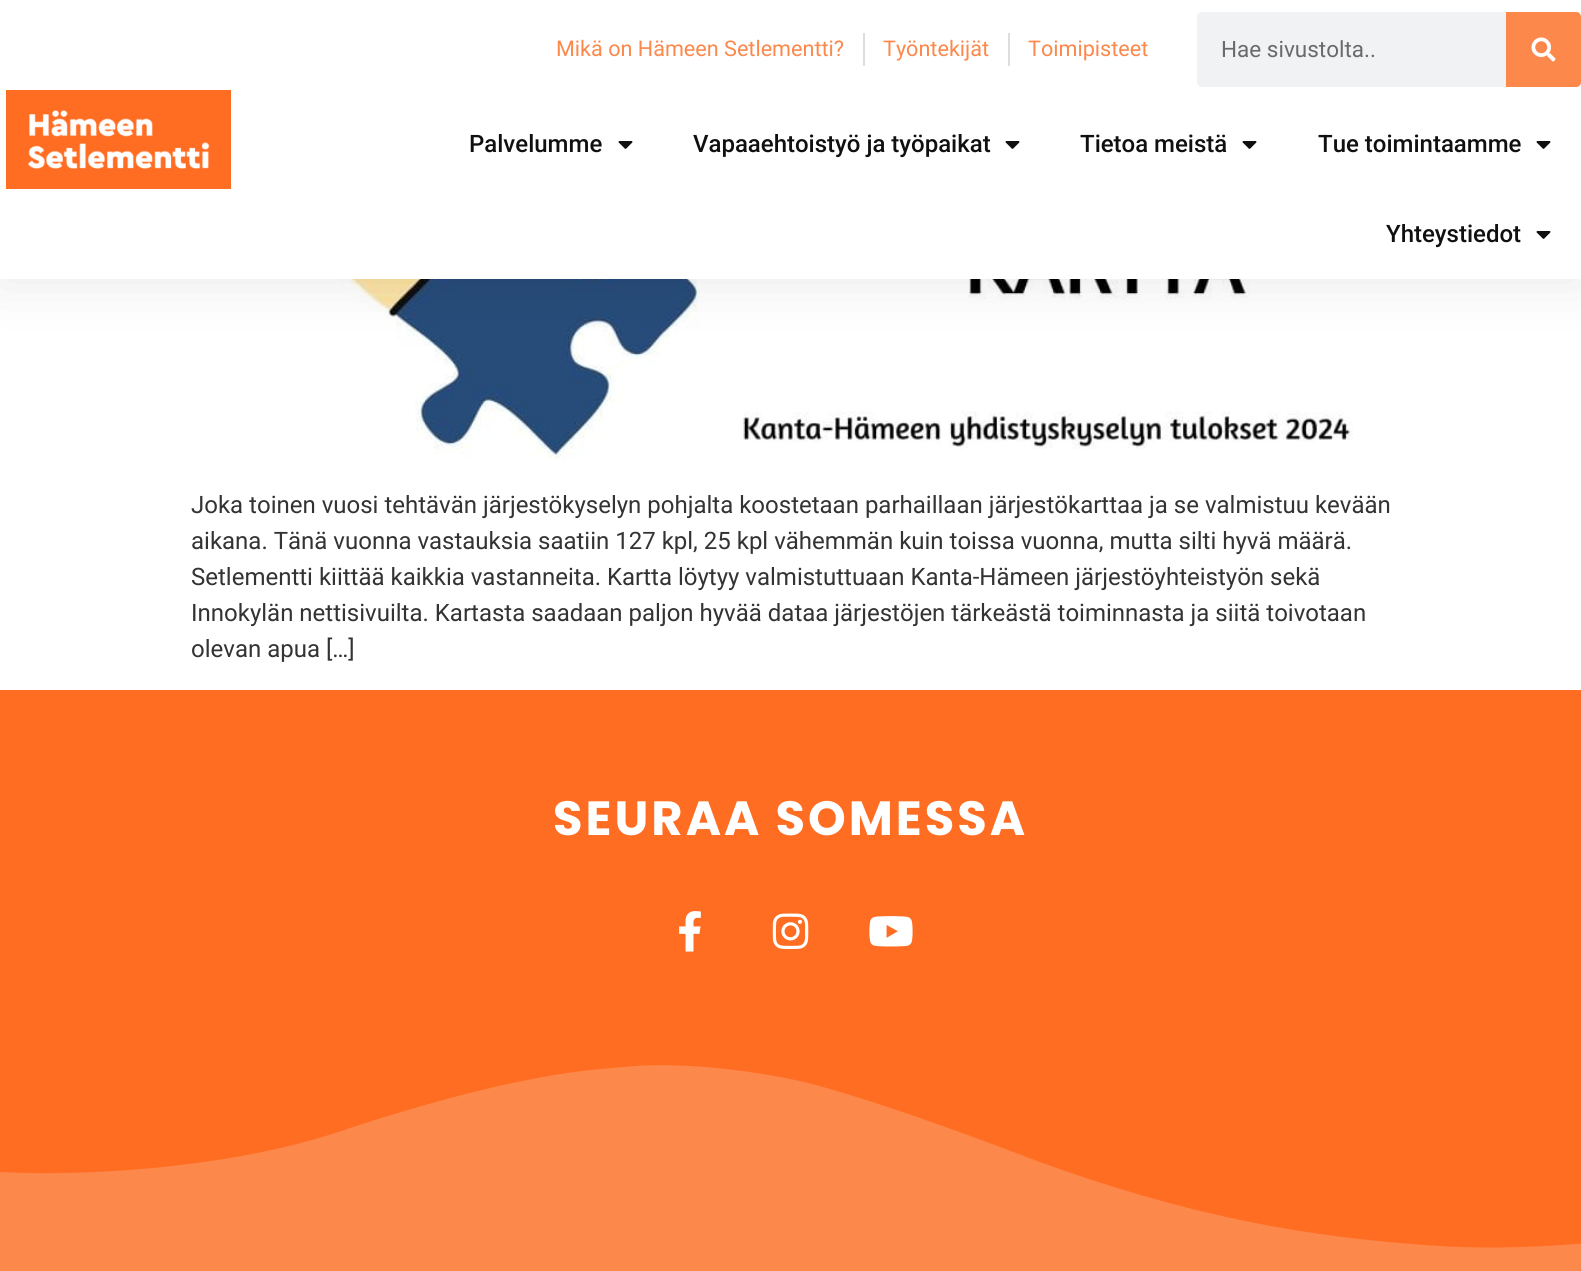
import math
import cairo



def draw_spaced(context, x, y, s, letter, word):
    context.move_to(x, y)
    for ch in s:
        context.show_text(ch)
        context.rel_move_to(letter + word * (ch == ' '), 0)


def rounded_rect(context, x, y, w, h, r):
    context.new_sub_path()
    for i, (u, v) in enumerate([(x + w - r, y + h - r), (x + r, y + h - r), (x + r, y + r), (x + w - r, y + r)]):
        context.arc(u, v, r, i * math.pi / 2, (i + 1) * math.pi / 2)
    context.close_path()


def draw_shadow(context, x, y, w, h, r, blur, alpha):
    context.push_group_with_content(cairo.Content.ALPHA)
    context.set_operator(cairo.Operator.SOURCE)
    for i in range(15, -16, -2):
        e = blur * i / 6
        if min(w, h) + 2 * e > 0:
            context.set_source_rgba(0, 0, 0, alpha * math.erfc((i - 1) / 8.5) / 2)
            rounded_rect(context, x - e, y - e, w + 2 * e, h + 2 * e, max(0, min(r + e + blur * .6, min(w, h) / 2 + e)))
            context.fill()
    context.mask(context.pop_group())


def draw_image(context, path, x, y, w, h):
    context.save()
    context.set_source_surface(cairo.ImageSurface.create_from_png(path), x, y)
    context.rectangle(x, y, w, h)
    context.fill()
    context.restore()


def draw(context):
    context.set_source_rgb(1, 1, 1)
    context.paint()
    draw_image(context, "images/4.png", 228, 279, 1125, 180)
    context.set_source_rgb(0, 0, 0)
    draw_shadow(context, 0, 0, 1581, 279, 0, 28.5, 0.1)
    context.set_source_rgb(1, 1, 1)
    context.rectangle(0, 0, 1581, 279)
    context.fill()
    draw_image(context, "images/1.png", 6, 90, 225, 99)
    context.set_source_rgb(221 / 255, 221 / 255, 221 / 255)
    context.rectangle(863, 33, 2, 33)
    context.fill()
    context.rectangle(1008, 33, 2, 33)
    context.fill()
    context.set_source_rgb(241 / 255, 242 / 255, 243 / 255)
    rounded_rect(context, 1197, 12, 384, 75, 5)
    context.fill()
    context.set_source_rgb(252 / 255, 136 / 255, 75 / 255)
    context.new_path()
    context.move_to(1506, 12)
    context.line_to(1576, 12)
    context.curve_to(1579, 12, 1581, 14, 1581, 17)
    context.line_to(1581, 82)
    context.curve_to(1581, 85, 1579, 87, 1576, 87)
    context.line_to(1506, 87)
    context.close_path()
    context.fill()
    draw_image(context, "images/2.png", 1531, 37, 25, 25)
    draw_image(context, "images/3.png", 618, 141, 15, 8)
    draw_image(context, "images/3.png", 1005, 141, 15, 8)
    draw_image(context, "images/3.png", 1242, 141, 15, 8)
    draw_image(context, "images/3.png", 1536, 141, 15, 8)
    draw_image(context, "images/3.png", 1536, 231, 15, 8)
    context.set_source_rgb(1, 109 / 255, 34 / 255)
    context.rectangle(0, 690, 1581, 365)
    context.fill()
    draw_image(context, "images/5.png", 679, 911, 22, 41)
    draw_image(context, "images/6.png", 772, 913, 37, 36)
    draw_image(context, "images/7.png", 869, 916, 44, 31)
    context.set_source_rgb(252 / 255, 136 / 255, 75 / 255)
    context.rectangle(0, 1065, 1581, 206)
    context.fill()
    context.save()
    context.rectangle(0, 1055, 1581, 195)
    context.clip()
    context.set_source_rgb(1, 109 / 255, 34 / 255)
    context.new_path()
    context.move_to(624, 1067)
    context.curve_to(672, 1062, 734, 1068, 785, 1078)
    context.curve_to(835, 1087, 936, 1123, 1000, 1147)
    context.curve_to(1162, 1210, 1285, 1234, 1411, 1244)
    context.curve_to(1462, 1248, 1515, 1251, 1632, 1239)
    context.curve_to(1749, 1227, 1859, 1189, 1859, 1189)
    context.line_to(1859, 1054)
    context.line_to(-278, 1054)
    context.line_to(-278, 1114)
    context.curve_to(-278, 1114, -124, 1177, 61, 1173)
    context.curve_to(144, 1172, 259, 1160, 347, 1129)
    context.curve_to(392, 1114, 459, 1094, 517, 1082)
    context.curve_to(575, 1070, 602, 1069, 624, 1067)
    context.close_path()
    context.fill()
    context.restore()
    context.select_font_face("Roboto")
    context.set_font_size(21.6)
    context.move_to(556, 56)
    context.show_text("Mikä on Hämeen Setlementti?")
    context.move_to(883, 56)
    context.show_text("Työntekijät")
    context.move_to(1028, 56)
    context.show_text("Toimipisteet")
    context.set_font_size(22.5)
    context.set_source_rgb(106 / 255, 106 / 255, 107 / 255)
    context.move_to(1221, 57)
    context.show_text("Hae sivustolta..")
    context.select_font_face("Roboto Medium")
    context.set_font_size(24)
    context.set_source_rgb(16 / 255, 16 / 255, 16 / 255)
    context.move_to(469, 152)
    context.show_text("Palvelumme")
    context.move_to(693, 152)
    context.show_text("Vapaaehtoistyö ja työpaikat")
    context.move_to(1080, 152)
    context.show_text("Tietoa meistä")
    context.move_to(1318, 152)
    context.show_text("Tue toimintaamme")
    context.move_to(1386, 242)
    context.show_text("Yhteystiedot")
    context.select_font_face("Roboto")
    context.set_source_rgb(51 / 255, 51 / 255, 51 / 255)
    context.move_to(191, 513)
    context.show_text("Joka toinen vuosi tehtävän järjestökyselyn pohjalta koostetaan parhaillaan järjestökarttaa ja se valmistuu kevään")
    context.move_to(191, 549)
    context.show_text("aikana. Tänä vuonna vastauksia saatiin 127 kpl, 25 kpl vähemmän kuin toissa vuonna, mutta silti hyvä määrä.")
    context.move_to(191, 585)
    context.show_text("Setlementti kiittää kaikkia vastanneita. Kartta löytyy valmistuttuaan Kanta-Hämeen järjestöyhteistyön sekä")
    context.move_to(191, 621)
    context.show_text("Innokylän nettisivuilta. Kartasta saadaan paljon hyvää dataa järjestöjen tärkeästä toiminnasta ja siitä toivotaan")
    context.move_to(191, 657)
    context.show_text("olevan apua […]")
    context.select_font_face("Poppins", cairo.FontSlant.NORMAL, cairo.FontWeight.BOLD)
    context.set_font_size(48)
    context.set_source_rgb(1, 1, 1)
    draw_spaced(context, 553, 835, "SEURAA SOMESSA", 3, 0)


surface = cairo.ImageSurface(cairo.Format.RGB24, 1581, 1271)
context = cairo.Context(surface)
options = cairo.FontOptions()
options.set_hint_metrics(cairo.HintMetrics.OFF)
options.set_hint_style(cairo.HintStyle.NONE)
context.set_font_options(options)
context.set_miter_limit(4)
draw(context)
surface.write_to_png("out.png")
